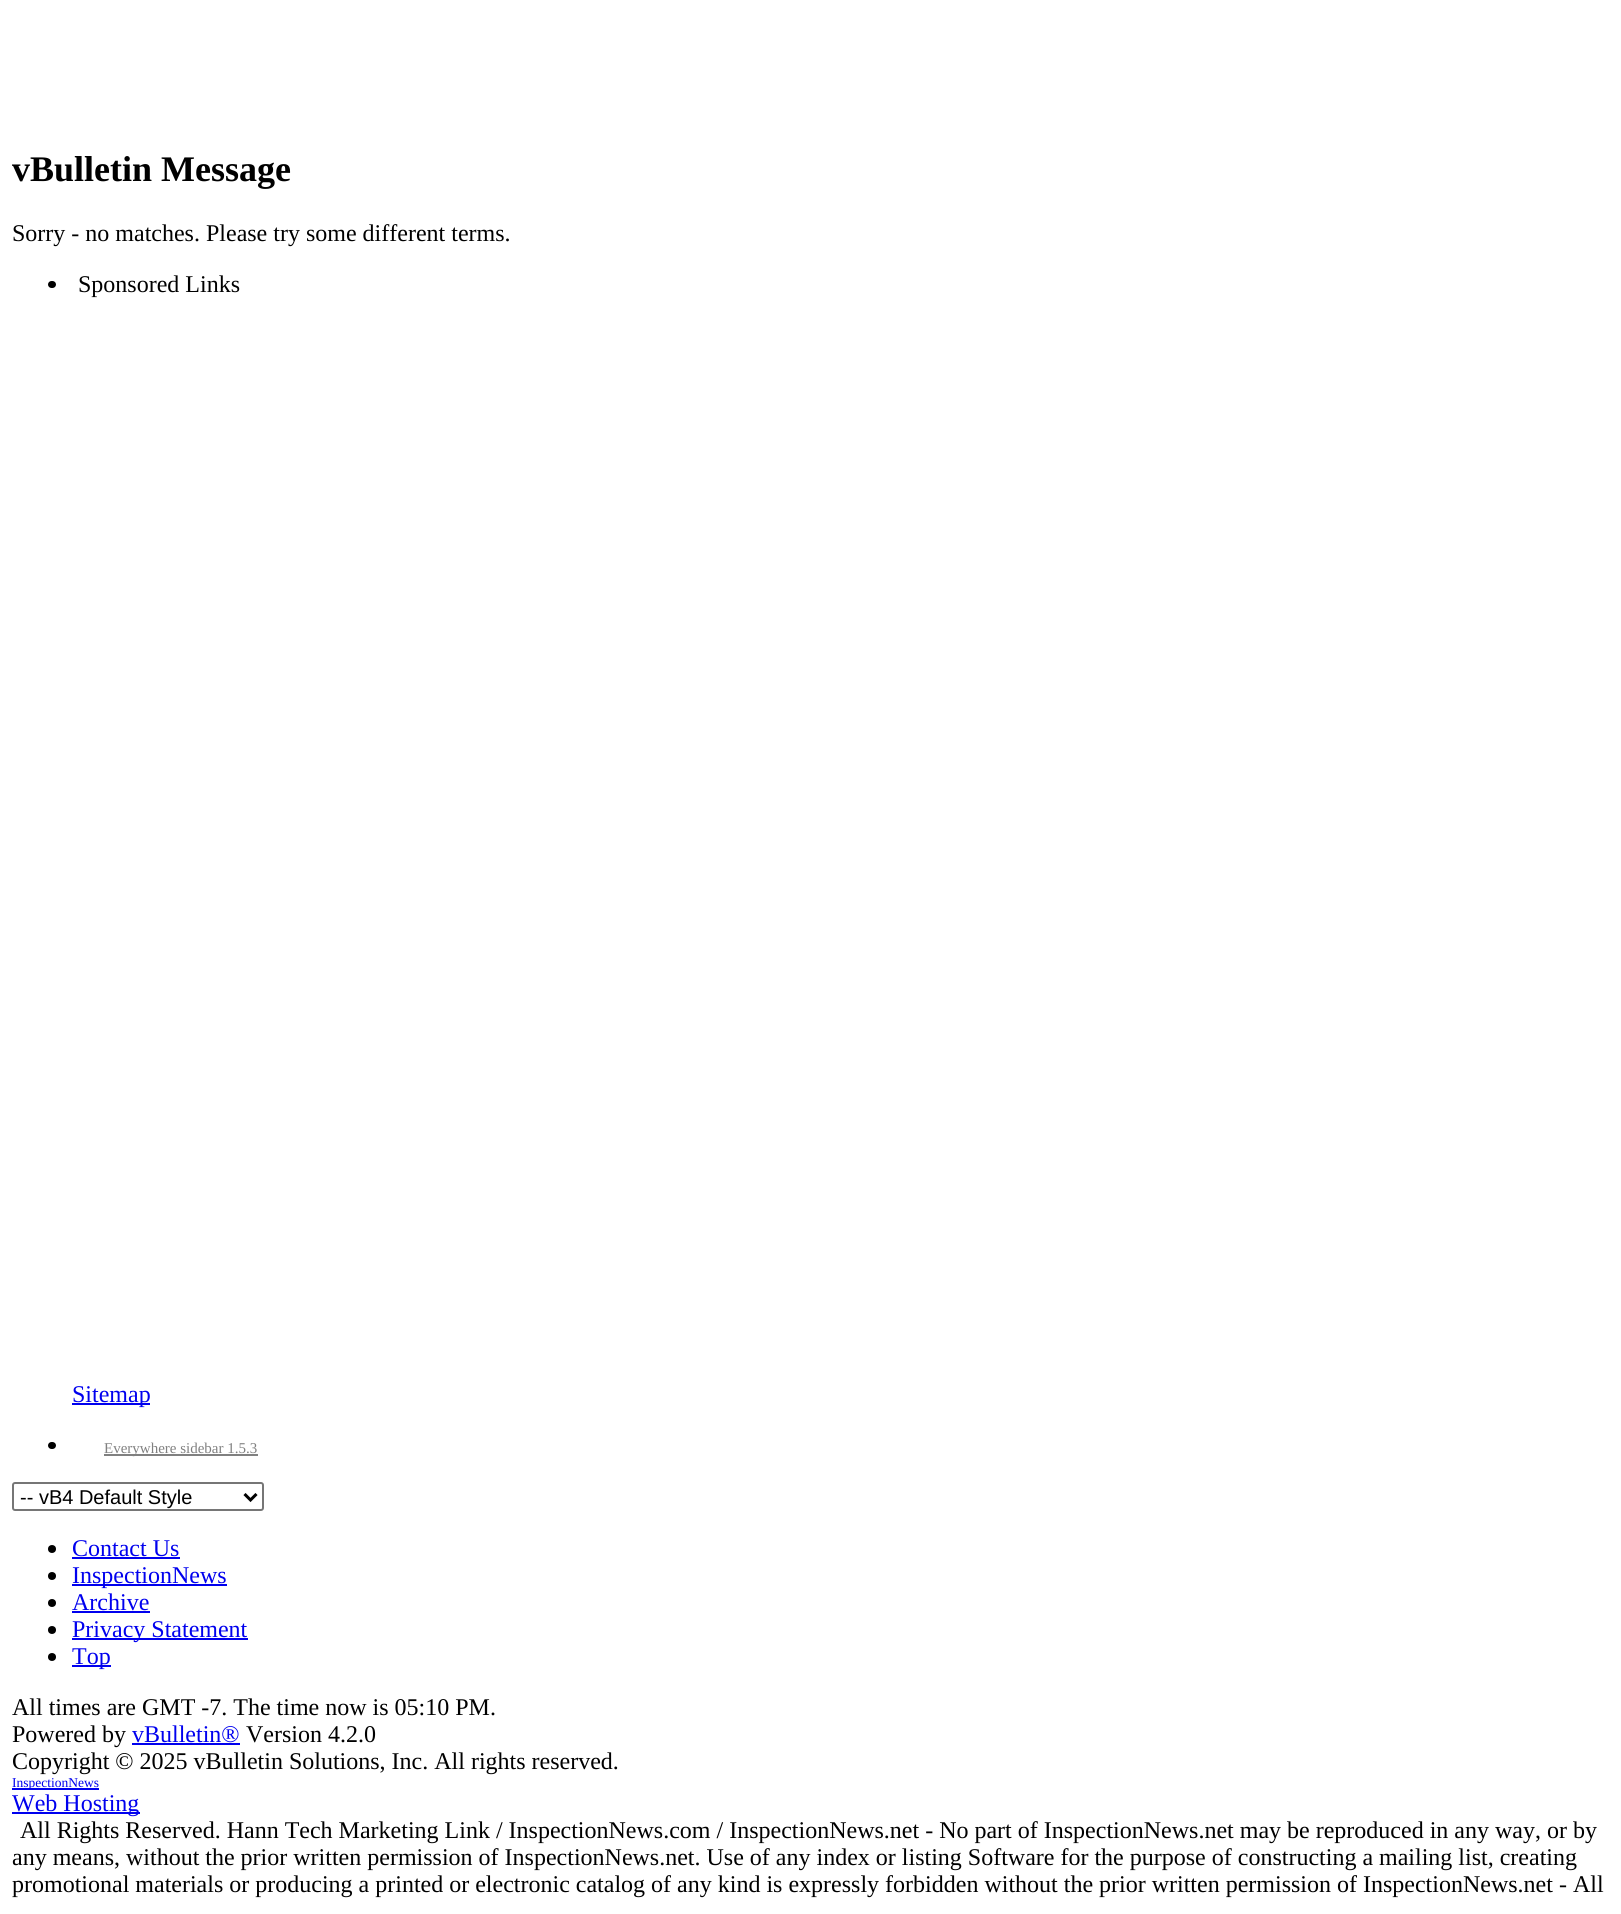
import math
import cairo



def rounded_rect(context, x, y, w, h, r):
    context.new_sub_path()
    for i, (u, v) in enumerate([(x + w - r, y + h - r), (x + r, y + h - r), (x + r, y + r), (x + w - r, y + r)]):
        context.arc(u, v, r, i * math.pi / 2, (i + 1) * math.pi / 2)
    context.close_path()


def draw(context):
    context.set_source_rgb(1, 1, 1)
    context.paint()
    context.set_source_rgb(0, 0, 0)
    rounded_rect(context, 48, 281, 8, 7, 3.5)
    context.fill()
    context.set_source_rgb(0, 0, 238 / 255)
    context.rectangle(72, 1403, 78, 2)
    context.fill()
    context.set_source_rgb(0, 0, 0)
    rounded_rect(context, 48, 1442, 8, 7, 3.5)
    context.fill()
    context.set_source_rgb(128 / 255, 128 / 255, 128 / 255)
    context.rectangle(104, 1454, 154, 2)
    context.fill()
    rounded_rect(context, 13, 1483, 250, 27, 2)
    context.set_source_rgb(118 / 255, 118 / 255, 118 / 255)
    context.stroke()
    context.new_path()
    context.move_to(244.5, 1494)
    context.line_to(250.5, 1500)
    context.line_to(256.5, 1494)
    context.set_source_rgb(0, 0, 0)
    context.set_line_width(3)
    context.stroke()
    context.arc(52, 1549, 4, 0, 2 * math.pi)
    context.fill()
    context.set_source_rgb(0, 0, 238 / 255)
    context.rectangle(72, 1557, 108, 2)
    context.fill()
    context.set_source_rgb(0, 0, 0)
    context.arc(52, 1576, 4, 0, 2 * math.pi)
    context.fill()
    context.set_source_rgb(0, 0, 238 / 255)
    context.rectangle(72, 1584, 155, 2)
    context.fill()
    context.set_source_rgb(0, 0, 0)
    context.arc(52, 1603, 4, 0, 2 * math.pi)
    context.fill()
    context.set_source_rgb(0, 0, 238 / 255)
    context.rectangle(72, 1611, 78, 2)
    context.fill()
    context.set_source_rgb(0, 0, 0)
    context.arc(52, 1630, 4, 0, 2 * math.pi)
    context.fill()
    context.set_source_rgb(0, 0, 238 / 255)
    context.rectangle(72, 1638, 176, 2)
    context.fill()
    context.set_source_rgb(0, 0, 0)
    context.arc(52, 1657, 4, 0, 2 * math.pi)
    context.fill()
    context.set_source_rgb(0, 0, 238 / 255)
    context.rectangle(72, 1665, 39, 2)
    context.fill()
    context.rectangle(132, 1743, 108, 2)
    context.fill()
    context.rectangle(12, 1788, 87, 2)
    context.fill()
    context.rectangle(12, 1812, 128, 2)
    context.fill()
    context.select_font_face("Liberation Serif", cairo.FontSlant.NORMAL, cairo.FontWeight.BOLD)
    context.set_font_size(36)
    context.set_source_rgb(0, 0, 0)
    context.move_to(12, 181)
    context.show_text("vBulletin Message")
    context.select_font_face("Liberation Serif")
    context.set_font_size(24)
    context.move_to(12, 241)
    context.show_text("Sorry - no matches. Please try some different terms.")
    context.move_to(78, 292)
    context.show_text("Sponsored Links")
    context.set_source_rgb(0, 0, 238 / 255)
    context.move_to(72, 1402)
    context.show_text("Sitemap")
    context.set_font_size(15)
    context.set_source_rgb(128 / 255, 128 / 255, 128 / 255)
    context.move_to(104, 1453)
    context.show_text("Everywhere sidebar 1.5.3")
    context.select_font_face("Liberation Sans")
    context.set_font_size(20)
    context.set_source_rgb(0, 0, 0)
    context.move_to(20, 1504)
    context.show_text("-- vB4 Default Style")
    context.select_font_face("Liberation Serif")
    context.set_font_size(24)
    context.set_source_rgb(0, 0, 238 / 255)
    context.move_to(72, 1556)
    context.show_text("Contact Us")
    context.move_to(72, 1583)
    context.show_text("InspectionNews")
    context.move_to(72, 1610)
    context.show_text("Archive")
    context.move_to(72, 1637)
    context.show_text("Privacy Statement")
    context.move_to(72, 1664)
    context.show_text("Top")
    context.set_source_rgb(0, 0, 0)
    context.move_to(12, 1715)
    context.show_text("All times are GMT -7. The time now is 05:10 PM.")
    context.move_to(12, 1742)
    context.show_text("Powered by")
    context.set_source_rgb(0, 0, 238 / 255)
    context.move_to(132, 1742)
    context.show_text("vBulletin®")
    context.set_source_rgb(0, 0, 0)
    context.move_to(246, 1742)
    context.show_text("Version 4.2.0")
    context.move_to(12, 1769)
    context.show_text("Copyright © 2025 vBulletin Solutions, Inc. All rights reserved.")
    context.set_font_size(13.5)
    context.set_source_rgb(0, 0, 238 / 255)
    context.move_to(12, 1787)
    context.show_text("InspectionNews")
    context.set_font_size(24)
    context.move_to(12, 1811)
    context.show_text("Web Hosting")
    context.set_source_rgb(0, 0, 0)
    context.move_to(20, 1838)
    context.show_text("All Rights Reserved. Hann Tech Marketing Link / InspectionNews.com / InspectionNews.net - No part of InspectionNews.net may be reproduced in any way, or by")
    context.move_to(12, 1865)
    context.show_text("any means, without the prior written permission of InspectionNews.net. Use of any index or listing Software for the purpose of constructing a mailing list, creating")
    context.move_to(12, 1892)
    context.show_text("promotional materials or producing a printed or electronic catalog of any kind is expressly forbidden without the prior written permission of InspectionNews.net - All")


surface = cairo.ImageSurface(cairo.Format.RGB24, 1621, 1914)
context = cairo.Context(surface)
options = cairo.FontOptions()
options.set_hint_metrics(cairo.HintMetrics.OFF)
options.set_hint_style(cairo.HintStyle.NONE)
context.set_font_options(options)
context.set_miter_limit(4)
draw(context)
surface.write_to_png("out.png")
